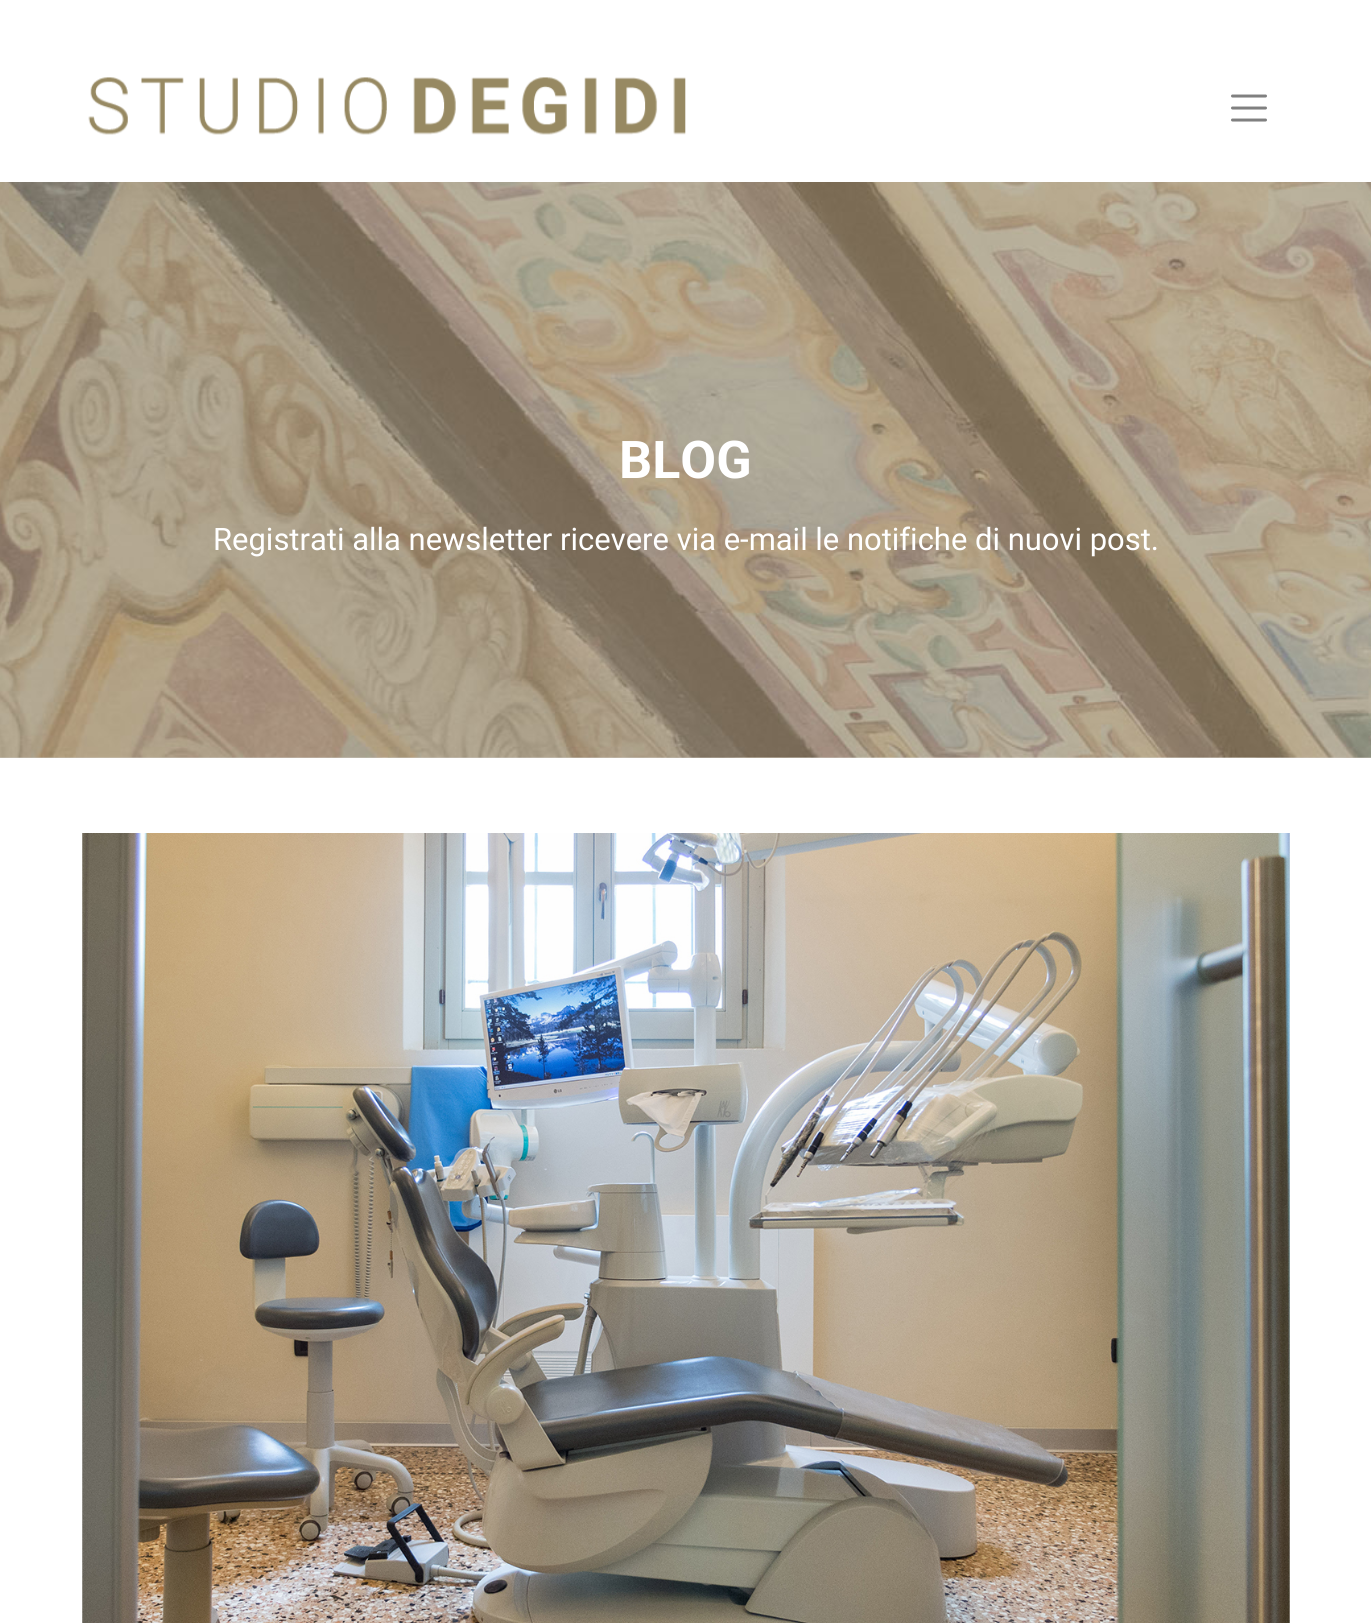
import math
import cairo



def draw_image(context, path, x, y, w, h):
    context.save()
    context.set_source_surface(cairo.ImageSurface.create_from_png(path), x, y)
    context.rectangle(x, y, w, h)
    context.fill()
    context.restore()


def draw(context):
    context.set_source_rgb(1, 1, 1)
    context.paint()
    draw_image(context, "images/1.png", 88, 77, 598, 58)
    context.new_path()
    context.move_to(1232.5, 96)
    context.line_to(1265.5, 96)
    context.move_to(1232.5, 108)
    context.line_to(1265.5, 108)
    context.move_to(1232.5, 120)
    context.line_to(1265.5, 120)
    context.set_source_rgb(128 / 255, 128 / 255, 128 / 255)
    context.set_line_width(3)
    context.set_line_cap(cairo.LineCap.ROUND)
    context.stroke()
    draw_image(context, "images/2.png", 0, 182, 1371, 576)
    draw_image(context, "images/3.png", 82, 833, 1208, 790)
    context.select_font_face("Roboto", cairo.FontSlant.NORMAL, cairo.FontWeight.BOLD)
    context.set_font_size(52)
    context.set_source_rgb(1, 1, 1)
    context.move_to(619, 478)
    context.show_text("BLOG")
    context.select_font_face("Roboto")
    context.set_font_size(30.95)
    context.move_to(213, 550)
    context.show_text("Registrati alla newsletter ricevere via e-mail le notifiche di nuovi post.")


surface = cairo.ImageSurface(cairo.Format.RGB24, 1371, 1623)
context = cairo.Context(surface)
options = cairo.FontOptions()
options.set_hint_metrics(cairo.HintMetrics.OFF)
options.set_hint_style(cairo.HintStyle.NONE)
context.set_font_options(options)
context.set_miter_limit(4)
draw(context)
surface.write_to_png("out.png")
